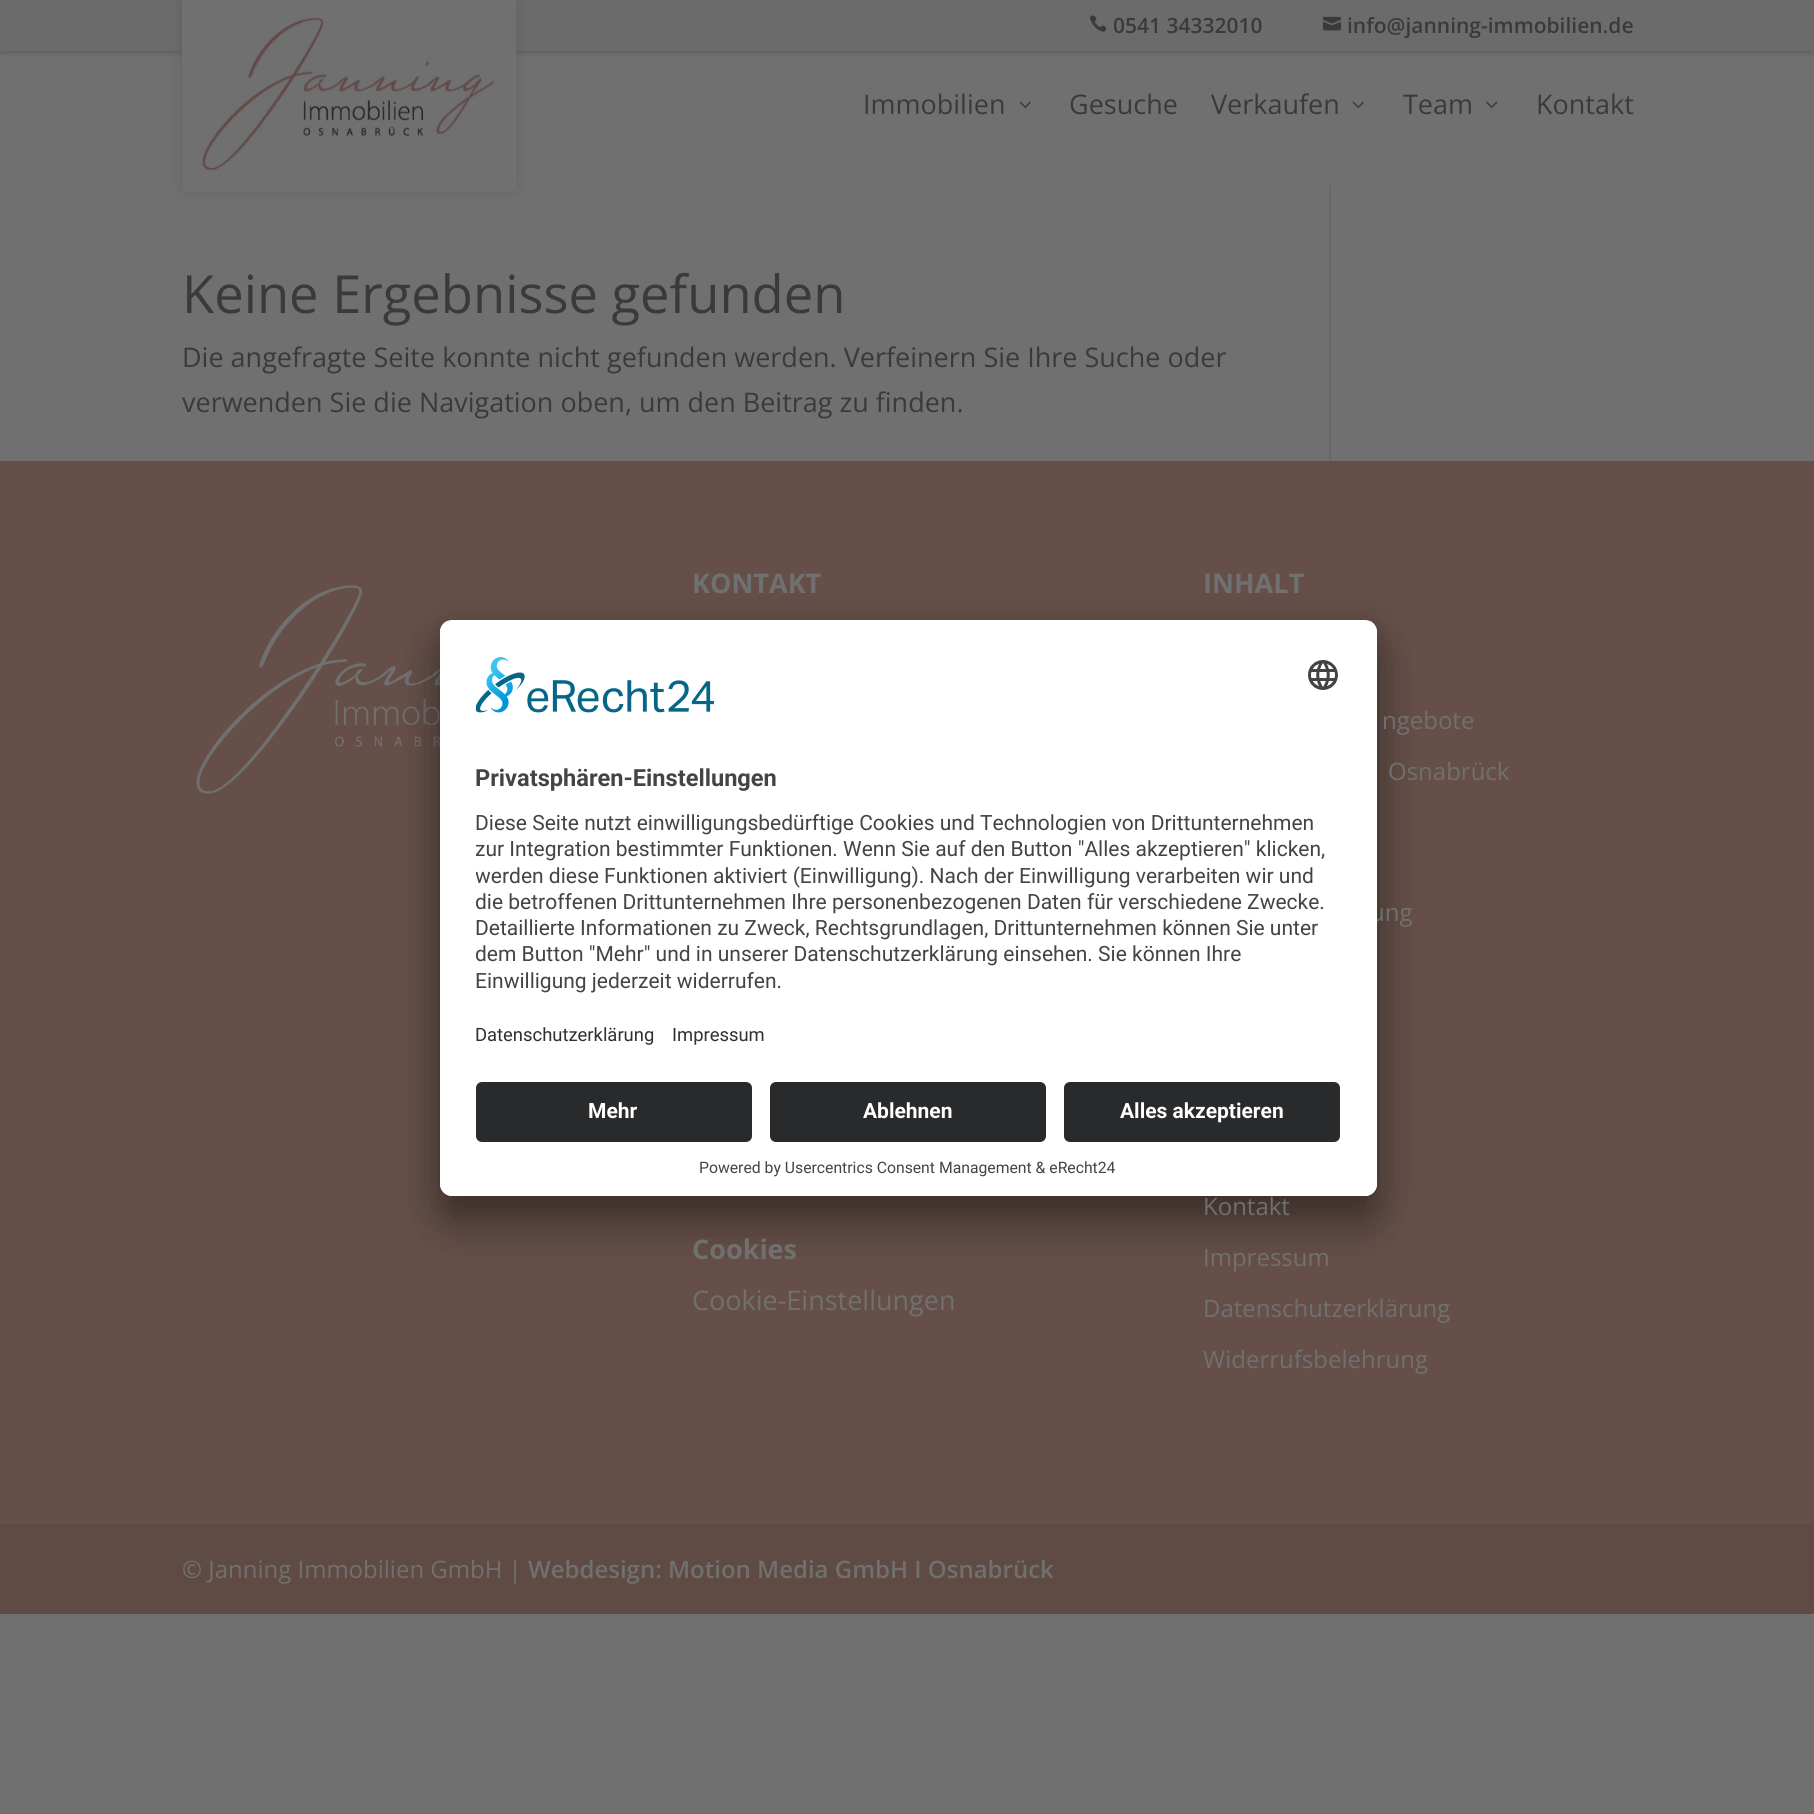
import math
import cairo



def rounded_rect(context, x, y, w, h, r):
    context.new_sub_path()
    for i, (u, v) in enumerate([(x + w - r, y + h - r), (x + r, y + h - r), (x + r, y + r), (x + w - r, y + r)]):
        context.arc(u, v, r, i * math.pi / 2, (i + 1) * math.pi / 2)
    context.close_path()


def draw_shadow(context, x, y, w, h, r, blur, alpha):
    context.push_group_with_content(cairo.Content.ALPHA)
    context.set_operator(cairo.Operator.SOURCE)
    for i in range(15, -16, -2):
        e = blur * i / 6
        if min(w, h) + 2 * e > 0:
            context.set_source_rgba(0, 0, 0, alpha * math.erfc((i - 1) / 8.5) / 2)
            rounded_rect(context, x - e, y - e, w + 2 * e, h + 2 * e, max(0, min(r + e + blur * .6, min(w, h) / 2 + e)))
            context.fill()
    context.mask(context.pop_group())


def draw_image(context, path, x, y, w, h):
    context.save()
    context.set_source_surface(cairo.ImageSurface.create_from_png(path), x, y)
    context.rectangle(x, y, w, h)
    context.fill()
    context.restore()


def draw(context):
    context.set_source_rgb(112 / 255, 112 / 255, 112 / 255)
    context.paint()
    context.set_source_rgb(36 / 255, 36 / 255, 36 / 255)
    draw_shadow(context, 0, 3, 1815, 51, 0, 2, 0.2)
    context.set_source_rgb(107 / 255, 107 / 255, 107 / 255)
    context.rectangle(0, 0, 1814, 51)
    context.fill()
    context.set_source_rgb(36 / 255, 36 / 255, 36 / 255)
    draw_shadow(context, 182, -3, 334, 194, 8, 6, 0.2)
    context.set_source_rgb(112 / 255, 112 / 255, 112 / 255)
    context.new_path()
    context.move_to(182, -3)
    context.line_to(516, -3)
    context.line_to(516, 183)
    context.curve_to(516, 187.5, 512.5, 191, 508, 191)
    context.line_to(190, 191)
    context.curve_to(185.5, 191, 182, 187.5, 182, 183)
    context.close_path()
    context.fill()
    draw_image(context, "images/1.png", 183, 0, 334, 189)
    draw_image(context, "images/2.png", 182, 17, 334, 175)
    draw_image(context, "images/3.png", 1089, 15, 18, 17)
    draw_image(context, "images/4.png", 1323, 16, 18, 15)
    draw_image(context, "images/5.png", 1019, 101, 12, 7)
    draw_image(context, "images/5.png", 1352, 101, 12, 7)
    draw_image(context, "images/6.png", 1486, 101, 12, 7)
    context.set_source_rgb(104 / 255, 104 / 255, 104 / 255)
    context.rectangle(1329, 179, 2, 282)
    context.fill()
    context.set_source_rgb(111 / 255, 111 / 255, 111 / 255)
    context.rectangle(1329, 179, 2, 6)
    context.fill()
    context.set_source_rgb(101 / 255, 79 / 255, 72 / 255)
    context.rectangle(0, 461, 1814, 1063)
    context.fill()
    draw_image(context, "images/7.png", 196, 585, 244, 209)
    context.set_source_rgb(96 / 255, 74 / 255, 68 / 255)
    context.rectangle(0, 1524, 1814, 90)
    context.fill()
    context.set_source_rgb(0, 0, 0)
    draw_shadow(context, 440, 650, 937, 576, 12, 21, 0.3)
    draw_shadow(context, 440, 627, 937, 576, 12, 19.5, 0.22)
    context.select_font_face("Open Sans SemiBold")
    context.set_font_size(21)
    context.set_source_rgb(58 / 255, 58 / 255, 58 / 255)
    context.move_to(1113, 33)
    context.show_text("0541 34332010")
    context.move_to(1347, 33)
    context.show_text("info@janning-immobilien.de")
    context.select_font_face("Open Sans")
    context.set_font_size(27)
    context.move_to(863, 114)
    context.show_text("Immobilien")
    context.move_to(1069, 114)
    context.show_text("Gesuche")
    context.move_to(1211, 114)
    context.show_text("Verkaufen")
    context.move_to(1403, 114)
    context.show_text("Team")
    context.move_to(1536, 114)
    context.show_text("Kontakt")
    context.set_font_size(52.5)
    context.move_to(182, 313)
    context.show_text("Keine Ergebnisse gefunden")
    context.set_font_size(27)
    context.move_to(182, 367)
    context.show_text("Die angefragte Seite konnte nicht gefunden werden. Verfeinern Sie Ihre Suche oder")
    context.move_to(182, 412)
    context.show_text("verwenden Sie die Navigation oben, um den Beitrag zu finden.")
    context.select_font_face("Open Sans", cairo.FontSlant.NORMAL, cairo.FontWeight.BOLD)
    context.set_source_rgb(112 / 255, 112 / 255, 112 / 255)
    context.move_to(692, 593)
    context.show_text("KONTAKT")
    context.move_to(692, 1259)
    context.show_text("Cookies")
    context.select_font_face("Open Sans")
    context.move_to(692, 1310)
    context.show_text("Cookie-Einstellungen")
    context.select_font_face("Open Sans", cairo.FontSlant.NORMAL, cairo.FontWeight.BOLD)
    context.move_to(1203, 593)
    context.show_text("INHALT")
    context.select_font_face("Open Sans")
    context.set_font_size(24)
    context.move_to(1382, 729)
    context.show_text("ngebote")
    context.move_to(1388, 780)
    context.show_text("Osnabrück")
    context.move_to(1370, 921)
    context.show_text("ung")
    context.move_to(1203, 1215)
    context.show_text("Kontakt")
    context.move_to(1203, 1266)
    context.show_text("Impressum")
    context.move_to(1203, 1317)
    context.show_text("Datenschutzerklärung")
    context.move_to(1203, 1368)
    context.show_text("Widerrufsbelehrung")
    context.move_to(182, 1578)
    context.show_text("© Janning Immobilien GmbH |")
    context.select_font_face("Open Sans SemiBold")
    context.move_to(528, 1578)
    context.show_text("Webdesign: Motion Media GmbH I Osnabrück")
    context.set_source_rgb(1, 1, 1)
    rounded_rect(context, 440, 620, 937, 576, 12)
    context.fill()
    context.save()
    rounded_rect(context, 440, 620, 937, 576, 12)
    context.clip()
    context.new_path()
    context.move_to(452, 620)
    context.line_to(1365, 620)
    context.curve_to(1371.5, 620, 1377, 625.5, 1377, 632)
    context.line_to(1377, 1070)
    context.line_to(440, 1070)
    context.line_to(440, 632)
    context.curve_to(440, 625.5, 445.5, 620, 452, 620)
    context.close_path()
    context.clip()
    context.rectangle(440, 621, 937, 449)
    context.fill()
    context.restore()
    draw_image(context, "images/8.png", 476, 657, 238, 56)
    draw_image(context, "images/9.png", 1308, 660, 30, 30)
    context.select_font_face("Roboto", cairo.FontSlant.NORMAL, cairo.FontWeight.BOLD)
    context.set_font_size(23.6)
    context.set_source_rgb(68 / 255, 68 / 255, 68 / 255)
    context.move_to(475, 786)
    context.show_text("Privatsphären-Einstellungen")
    context.select_font_face("Roboto")
    context.set_font_size(21)
    context.move_to(475, 830)
    context.show_text("Diese Seite nutzt einwilligungsbedürftige Cookies und Technologien von Drittunternehmen")
    context.save()
    context.rectangle(476, 804, 865, 197)
    context.clip()
    context.move_to(475, 856)
    context.show_text("zur Integration bestimmter Funktionen. Wenn Sie auf den Button \"Alles akzeptieren\" klicken,")
    context.move_to(475, 883)
    context.show_text("werden diese Funktionen aktiviert (Einwilligung). Nach der Einwilligung verarbeiten wir und")
    context.move_to(475, 909)
    context.show_text("die betroffenen Drittunternehmen Ihre personenbezogenen Daten für verschiedene Zwecke.")
    context.restore()
    context.move_to(475, 935)
    context.show_text("Detaillierte Informationen zu Zweck, Rechtsgrundlagen, Drittunternehmen können Sie unter")
    context.save()
    context.rectangle(476, 804, 865, 197)
    context.clip()
    context.move_to(475, 961)
    context.show_text("dem Button \"Mehr\" und in unserer Datenschutzerklärung einsehen. Sie können Ihre")
    context.restore()
    context.move_to(475, 988)
    context.show_text("Einwilligung jederzeit widerrufen.")
    context.set_font_size(18.4)
    context.set_source_rgb(48 / 255, 48 / 255, 48 / 255)
    context.move_to(475, 1041)
    context.show_text("Datenschutzerklärung")
    context.move_to(672, 1041)
    context.show_text("Impressum")
    context.set_source_rgb(1, 1, 1)
    context.new_path()
    context.move_to(440, 1070)
    context.line_to(1377, 1070)
    context.line_to(1377, 1184)
    context.curve_to(1377, 1190.5, 1371.5, 1196, 1365, 1196)
    context.line_to(452, 1196)
    context.curve_to(445.5, 1196, 440, 1190.5, 440, 1184)
    context.close_path()
    context.fill()
    context.set_source_rgb(41 / 255, 42 / 255, 43 / 255)
    rounded_rect(context, 476, 1082, 276, 60, 6)
    context.fill()
    context.select_font_face("Roboto", cairo.FontSlant.NORMAL, cairo.FontWeight.BOLD)
    context.set_font_size(21)
    context.set_source_rgb(1, 1, 1)
    context.move_to(588, 1118)
    context.show_text("Mehr")
    context.set_source_rgb(41 / 255, 42 / 255, 43 / 255)
    rounded_rect(context, 770, 1082, 276, 60, 6)
    context.fill()
    context.set_source_rgb(1, 1, 1)
    context.move_to(863, 1118)
    context.show_text("Ablehnen")
    context.set_source_rgb(41 / 255, 42 / 255, 43 / 255)
    rounded_rect(context, 1064, 1082, 276, 60, 6)
    context.fill()
    context.set_source_rgb(1, 1, 1)
    context.move_to(1120, 1118)
    context.show_text("Alles akzeptieren")
    context.select_font_face("Roboto")
    context.set_font_size(15.75)
    context.set_source_rgb(68 / 255, 68 / 255, 68 / 255)
    context.move_to(699, 1173)
    context.show_text("Powered by Usercentrics Consent Management & eRecht24")


surface = cairo.ImageSurface(cairo.Format.RGB24, 1814, 1814)
context = cairo.Context(surface)
options = cairo.FontOptions()
options.set_hint_metrics(cairo.HintMetrics.OFF)
options.set_hint_style(cairo.HintStyle.NONE)
context.set_font_options(options)
context.set_miter_limit(4)
draw(context)
surface.write_to_png("out.png")
